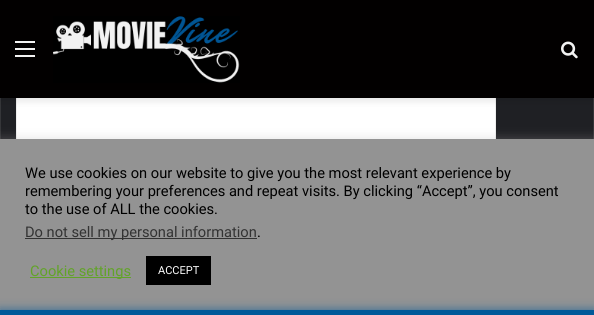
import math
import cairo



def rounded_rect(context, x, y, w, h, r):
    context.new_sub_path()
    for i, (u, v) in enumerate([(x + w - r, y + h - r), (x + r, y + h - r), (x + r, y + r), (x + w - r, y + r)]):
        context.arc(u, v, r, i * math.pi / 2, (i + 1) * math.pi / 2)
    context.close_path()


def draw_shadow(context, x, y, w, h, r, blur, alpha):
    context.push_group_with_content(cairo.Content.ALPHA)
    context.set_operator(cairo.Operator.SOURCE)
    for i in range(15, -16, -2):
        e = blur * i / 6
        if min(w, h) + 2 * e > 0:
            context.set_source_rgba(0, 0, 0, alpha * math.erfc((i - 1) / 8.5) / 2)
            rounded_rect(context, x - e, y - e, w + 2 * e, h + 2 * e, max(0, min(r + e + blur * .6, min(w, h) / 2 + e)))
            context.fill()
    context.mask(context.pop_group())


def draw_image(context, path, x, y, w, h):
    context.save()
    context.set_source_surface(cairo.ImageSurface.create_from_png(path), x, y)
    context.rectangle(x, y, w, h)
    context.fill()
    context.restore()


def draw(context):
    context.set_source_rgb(31 / 255, 32 / 255, 36 / 255)
    context.paint()
    context.rectangle(0.5, -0.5, 593, 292)
    context.set_source_rgba(1, 1, 1, 0.1)
    context.set_line_width(1)
    context.stroke()
    context.set_source_rgb(1, 1, 1)
    context.rectangle(17, 98, 478, 41)
    context.fill()
    context.rectangle(16.5, -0.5, 479, 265)
    context.set_source_rgb(238 / 255, 238 / 255, 238 / 255)
    context.stroke()
    context.set_source_rgb(0, 0, 0)
    draw_shadow(context, 0, 3, 594, 98, 0, 3.5, 0.1)
    context.set_source_rgb(2 / 255, 0, 0)
    context.rectangle(0, 0, 594, 98)
    context.fill()
    context.set_source_rgb(242 / 255, 242 / 255, 242 / 255)
    context.rectangle(15, 48, 20, 2)
    context.fill()
    context.rectangle(15, 41, 20, 2)
    context.fill()
    context.rectangle(15, 55, 20, 2)
    context.fill()
    draw_image(context, "images/1.png", 53, 16, 187, 67)
    draw_image(context, "images/2.png", 561, 41, 17, 18)
    context.set_source_rgb(172 / 255, 171 / 255, 171 / 255)
    draw_shadow(context, 0, 138, 594, 176, 0, 5, 0.3)
    context.set_source_rgb(147 / 255, 147 / 255, 147 / 255)
    context.rectangle(0, 139, 594, 171)
    context.fill()
    context.set_source_rgb(51 / 255, 51 / 255, 51 / 255)
    context.rectangle(25, 238, 232, 1)
    context.fill()
    context.set_source_rgb(98 / 255, 163 / 255, 41 / 255)
    context.rectangle(30, 277, 101, 1)
    context.fill()
    context.set_source_rgb(0, 0, 0)
    context.rectangle(146, 256, 65, 29)
    context.fill()
    context.set_source_rgb(0, 89 / 255, 153 / 255)
    draw_shadow(context, 0, 310, 594, 5, 0, 5, 0.7)
    context.set_source_rgb(0, 89 / 255, 153 / 255)
    context.rectangle(0, 310, 594, 5)
    context.fill()
    context.select_font_face("Roboto")
    context.set_font_size(14.65)
    context.set_source_rgb(0, 0, 0)
    context.move_to(25, 178)
    context.show_text("We use cookies on our website to give you the most relevant experience by")
    context.move_to(25, 196)
    context.show_text("remembering your preferences and repeat visits. By clicking “Accept”, you consent")
    context.move_to(25, 214)
    context.show_text("to the use of ALL the cookies.")
    context.set_source_rgb(51 / 255, 51 / 255, 51 / 255)
    context.move_to(25, 237)
    context.show_text("Do not sell my personal information")
    context.set_source_rgb(0, 0, 0)
    context.move_to(257, 237)
    context.show_text(".")
    context.set_source_rgb(98 / 255, 163 / 255, 41 / 255)
    context.move_to(30, 276)
    context.show_text("Cookie settings")
    context.set_font_size(11)
    context.set_source_rgb(1, 1, 1)
    context.move_to(158, 274)
    context.show_text("ACCEPT")


surface = cairo.ImageSurface(cairo.Format.RGB24, 594, 315)
context = cairo.Context(surface)
options = cairo.FontOptions()
options.set_hint_metrics(cairo.HintMetrics.OFF)
options.set_hint_style(cairo.HintStyle.NONE)
context.set_font_options(options)
context.set_miter_limit(4)
draw(context)
surface.write_to_png("out.png")
